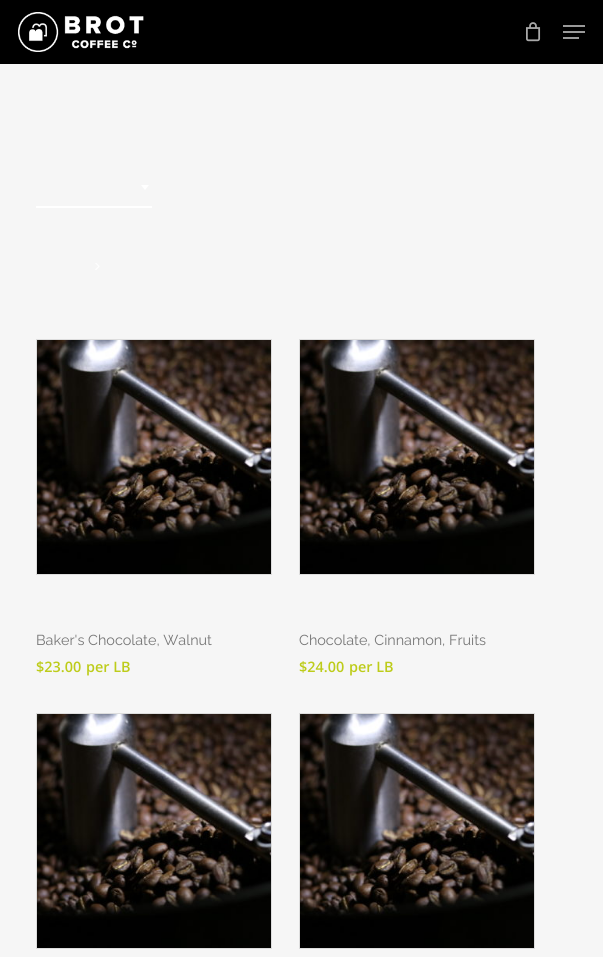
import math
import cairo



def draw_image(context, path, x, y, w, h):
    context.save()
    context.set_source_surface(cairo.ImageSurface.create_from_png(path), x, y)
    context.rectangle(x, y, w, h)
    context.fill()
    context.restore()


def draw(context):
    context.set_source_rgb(0, 0, 0)
    context.paint()
    draw_image(context, "images/1.png", 18, 12, 126, 40)
    draw_image(context, "images/2.png", 526, 22, 15, 20)
    context.set_source_rgb(153 / 255, 153 / 255, 153 / 255)
    context.rectangle(563, 25, 22, 2)
    context.fill()
    context.rectangle(563, 37, 16, 2)
    context.fill()
    context.rectangle(563, 31, 22, 2)
    context.fill()
    context.set_source_rgb(246 / 255, 246 / 255, 246 / 255)
    context.rectangle(0, 64, 603, 893)
    context.fill()
    context.set_source_rgb(1, 1, 1)
    context.new_path()
    context.move_to(141, 185)
    context.line_to(149, 185)
    context.line_to(145, 190)
    context.close_path()
    context.fill()
    context.rectangle(36, 206, 116, 2)
    context.fill()
    draw_image(context, "images/3.png", 95, 263, 5, 7)
    context.rectangle(36.5, 339.5, 235, 235)
    context.set_source_rgb(221 / 255, 221 / 255, 221 / 255)
    context.set_line_width(1)
    context.stroke()
    draw_image(context, "images/4.png", 37, 340, 234, 234)
    context.rectangle(299.5, 339.5, 235, 235)
    context.stroke()
    draw_image(context, "images/5.png", 300, 340, 234, 234)
    context.rectangle(36.5, 713.5, 235, 235)
    context.stroke()
    draw_image(context, "images/6.png", 37, 714, 234, 234)
    context.rectangle(299.5, 713.5, 235, 235)
    context.stroke()
    draw_image(context, "images/7.png", 300, 714, 234, 234)
    context.select_font_face("Raleway")
    context.set_font_size(14.4)
    context.set_source_rgb(119 / 255, 119 / 255, 119 / 255)
    context.move_to(36, 645)
    context.show_text("Baker's Chocolate, Walnut")
    context.select_font_face("Open Sans SemiBold")
    context.set_source_rgb(189 / 255, 204 / 255, 26 / 255)
    context.move_to(36, 672)
    context.show_text("$23.00")
    context.move_to(86, 672)
    context.show_text("per LB")
    context.select_font_face("Raleway")
    context.set_source_rgb(119 / 255, 119 / 255, 119 / 255)
    context.move_to(299, 645)
    context.show_text("Chocolate, Cinnamon, Fruits")
    context.select_font_face("Open Sans SemiBold")
    context.set_source_rgb(189 / 255, 204 / 255, 26 / 255)
    context.move_to(299, 672)
    context.show_text("$24.00")
    context.move_to(349, 672)
    context.show_text("per LB")


surface = cairo.ImageSurface(cairo.Format.RGB24, 603, 957)
context = cairo.Context(surface)
options = cairo.FontOptions()
options.set_hint_metrics(cairo.HintMetrics.OFF)
options.set_hint_style(cairo.HintStyle.NONE)
context.set_font_options(options)
context.set_miter_limit(4)
draw(context)
surface.write_to_png("out.png")
